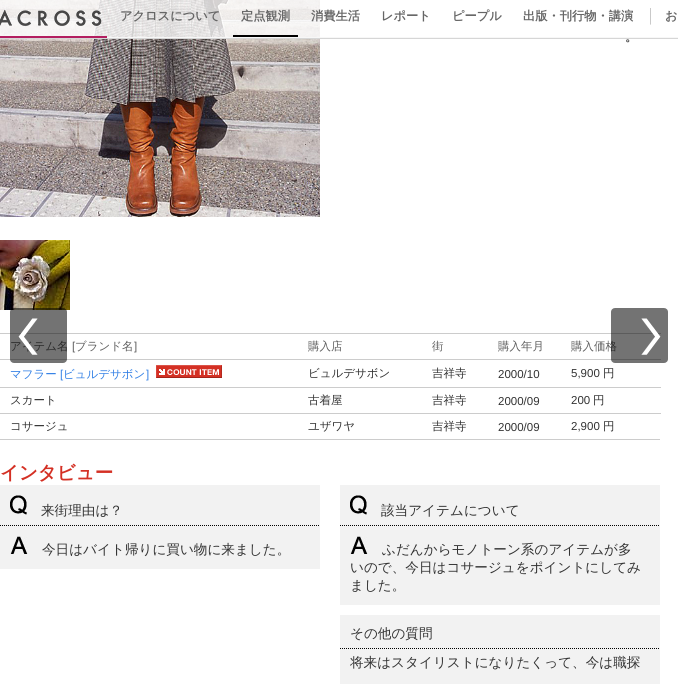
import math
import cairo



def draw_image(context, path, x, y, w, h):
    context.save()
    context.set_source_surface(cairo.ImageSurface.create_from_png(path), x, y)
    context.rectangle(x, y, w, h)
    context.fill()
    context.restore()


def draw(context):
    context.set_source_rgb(1, 1, 1)
    context.paint()
    draw_image(context, "images/3.png", 0, 0, 320, 217)
    context.set_source_rgb(214 / 255, 214 / 255, 214 / 255)
    context.rectangle(107, 37, 571, 1)
    context.fill()
    context.set_source_rgba(1, 1, 1, 0.8)
    context.rectangle(0, 0, 678, 38)
    context.fill()
    context.set_source_rgb(214 / 255, 214 / 255, 214 / 255)
    context.rectangle(0, 38, 678, 1)
    context.fill()
    context.set_source_rgb(179 / 255, 30 / 255, 96 / 255)
    context.rectangle(0, 36, 107, 2)
    context.fill()
    draw_image(context, "images/1.png", 0, 9, 102, 18)
    context.set_source_rgb(0, 0, 0)
    context.rectangle(233, 35, 65, 2)
    context.fill()
    draw_image(context, "images/2.png", 650, 8, 1, 17)
    draw_image(context, "images/4.png", 0, 240, 70, 70)
    context.set_source_rgb(204 / 255, 204 / 255, 204 / 255)
    context.rectangle(0, 439, 660, 1)
    context.fill()
    context.rectangle(0, 333, 661, 1)
    context.fill()
    context.rectangle(0, 359, 661, 1)
    context.fill()
    draw_image(context, "images/5.png", 156, 365, 66, 13)
    context.rectangle(0, 387, 661, 1)
    context.fill()
    context.rectangle(0, 413, 661, 1)
    context.fill()
    context.set_source_rgb(242 / 255, 242 / 255, 242 / 255)
    context.rectangle(0, 485, 320, 84)
    context.fill()
    context.new_path()
    context.move_to(0, 525.5)
    context.line_to(320, 525.5)
    context.set_source_rgb(0, 0, 0)
    context.set_line_width(1)
    context.set_dash([1, 1])
    context.stroke()
    draw_image(context, "images/6.png", 10, 495, 17, 20)
    draw_image(context, "images/7.png", 10, 536, 18, 18)
    context.set_source_rgb(242 / 255, 242 / 255, 242 / 255)
    context.rectangle(340, 485, 320, 120)
    context.fill()
    context.new_path()
    context.move_to(340, 525.5)
    context.line_to(660, 525.5)
    context.set_source_rgb(0, 0, 0)
    context.stroke()
    draw_image(context, "images/6.png", 350, 495, 17, 20)
    draw_image(context, "images/7.png", 350, 536, 18, 18)
    context.set_source_rgb(242 / 255, 242 / 255, 242 / 255)
    context.rectangle(340, 615, 320, 69)
    context.fill()
    context.new_path()
    context.move_to(340, 648.5)
    context.line_to(660, 648.5)
    context.set_source_rgb(0, 0, 0)
    context.stroke()
    context.select_font_face("WenQuanYi Zen Hei", cairo.FontSlant.NORMAL, cairo.FontWeight.BOLD)
    context.set_font_size(12.25)
    context.set_source_rgb(102 / 255, 102 / 255, 102 / 255)
    context.move_to(120, 20)
    context.show_text("アクロスについて")
    context.move_to(241, 20)
    context.show_text("定点観測")
    context.move_to(311, 20)
    context.show_text("消費生活")
    context.move_to(381, 20)
    context.show_text("レポート")
    context.move_to(452, 20)
    context.show_text("ピープル")
    context.move_to(523, 20)
    context.show_text("出版・刊行物・講演")
    context.move_to(665, 20)
    context.show_text("お")
    context.set_source_rgb(68 / 255, 68 / 255, 68 / 255)
    context.move_to(625, 41)
    context.show_text("。")
    context.select_font_face("WenQuanYi Zen Hei Medium")
    context.set_font_size(11.5)
    context.set_source_rgb(94 / 255, 94 / 255, 94 / 255)
    context.move_to(10, 350)
    context.show_text("アイテム名")
    context.select_font_face("Liberation Sans")
    context.move_to(72, 350)
    context.show_text("[")
    context.select_font_face("WenQuanYi Zen Hei Medium")
    context.move_to(75, 350)
    context.show_text("ブランド名")
    context.select_font_face("Liberation Sans")
    context.move_to(134, 350)
    context.show_text("]")
    context.select_font_face("WenQuanYi Zen Hei Medium")
    context.move_to(308, 350)
    context.show_text("購入店")
    context.move_to(432, 350)
    context.show_text("街")
    context.move_to(498, 350)
    context.show_text("購入年月")
    context.move_to(571, 350)
    context.show_text("購入価格")
    context.set_source_rgb(50 / 255, 128 / 255, 229 / 255)
    context.move_to(10, 378)
    context.show_text("マフラー")
    context.select_font_face("Liberation Sans")
    context.move_to(60, 378)
    context.show_text("[")
    context.select_font_face("WenQuanYi Zen Hei Medium")
    context.move_to(63, 378)
    context.show_text("ビュルデサボン")
    context.select_font_face("Liberation Sans")
    context.move_to(146, 378)
    context.show_text("]")
    context.select_font_face("WenQuanYi Zen Hei Medium")
    context.set_source_rgb(51 / 255, 51 / 255, 51 / 255)
    context.move_to(308, 377)
    context.show_text("ビュルデサボン")
    context.move_to(432, 377)
    context.show_text("吉祥寺")
    context.select_font_face("Liberation Sans")
    context.move_to(498, 378)
    context.show_text("2000/10")
    context.move_to(571, 377)
    context.show_text("5,900")
    context.select_font_face("WenQuanYi Zen Hei Medium")
    context.move_to(603, 377)
    context.show_text("円")
    context.move_to(10, 404)
    context.show_text("スカート")
    context.move_to(308, 404)
    context.show_text("古着屋")
    context.move_to(432, 404)
    context.show_text("吉祥寺")
    context.select_font_face("Liberation Sans")
    context.move_to(498, 405)
    context.show_text("2000/09")
    context.move_to(571, 404)
    context.show_text("200")
    context.select_font_face("WenQuanYi Zen Hei Medium")
    context.move_to(593, 404)
    context.show_text("円")
    context.move_to(10, 430)
    context.show_text("コサージュ")
    context.move_to(308, 430)
    context.show_text("ユザワヤ")
    context.move_to(432, 430)
    context.show_text("吉祥寺")
    context.select_font_face("Liberation Sans")
    context.move_to(498, 431)
    context.show_text("2000/09")
    context.move_to(571, 430)
    context.show_text("2,900")
    context.select_font_face("WenQuanYi Zen Hei Medium")
    context.move_to(603, 430)
    context.show_text("円")
    context.select_font_face("WenQuanYi Zen Hei", cairo.FontSlant.NORMAL, cairo.FontWeight.BOLD)
    context.set_font_size(18.5)
    context.set_source_rgb(212 / 255, 48 / 255, 36 / 255)
    context.move_to(0, 479)
    context.show_text("インタビュー")
    context.select_font_face("WenQuanYi Zen Hei Medium")
    context.set_font_size(13.6)
    context.set_source_rgb(51 / 255, 51 / 255, 51 / 255)
    context.move_to(41, 515)
    context.show_text("来街理由は？")
    context.move_to(42, 554)
    context.show_text("今日はバイト帰りに買い物に来ました。")
    context.move_to(381, 515)
    context.show_text("該当アイテムについて")
    context.move_to(382, 554)
    context.show_text("ふだんからモノトーン系のアイテムが多")
    context.move_to(350, 572)
    context.show_text("いので、今日はコサージュをポイントにしてみ")
    context.move_to(350, 590)
    context.show_text("ました。")
    context.move_to(350, 638)
    context.show_text("その他の質問")
    context.move_to(350, 667)
    context.show_text("将来はスタイリストになりたくって、今は職探")
    draw_image(context, "images/8.png", 10, 308, 57, 55)
    draw_image(context, "images/9.png", 611, 308, 57, 55)


surface = cairo.ImageSurface(cairo.Format.RGB24, 678, 684)
context = cairo.Context(surface)
options = cairo.FontOptions()
options.set_hint_metrics(cairo.HintMetrics.OFF)
options.set_hint_style(cairo.HintStyle.NONE)
context.set_font_options(options)
context.set_miter_limit(4)
draw(context)
surface.write_to_png("out.png")
